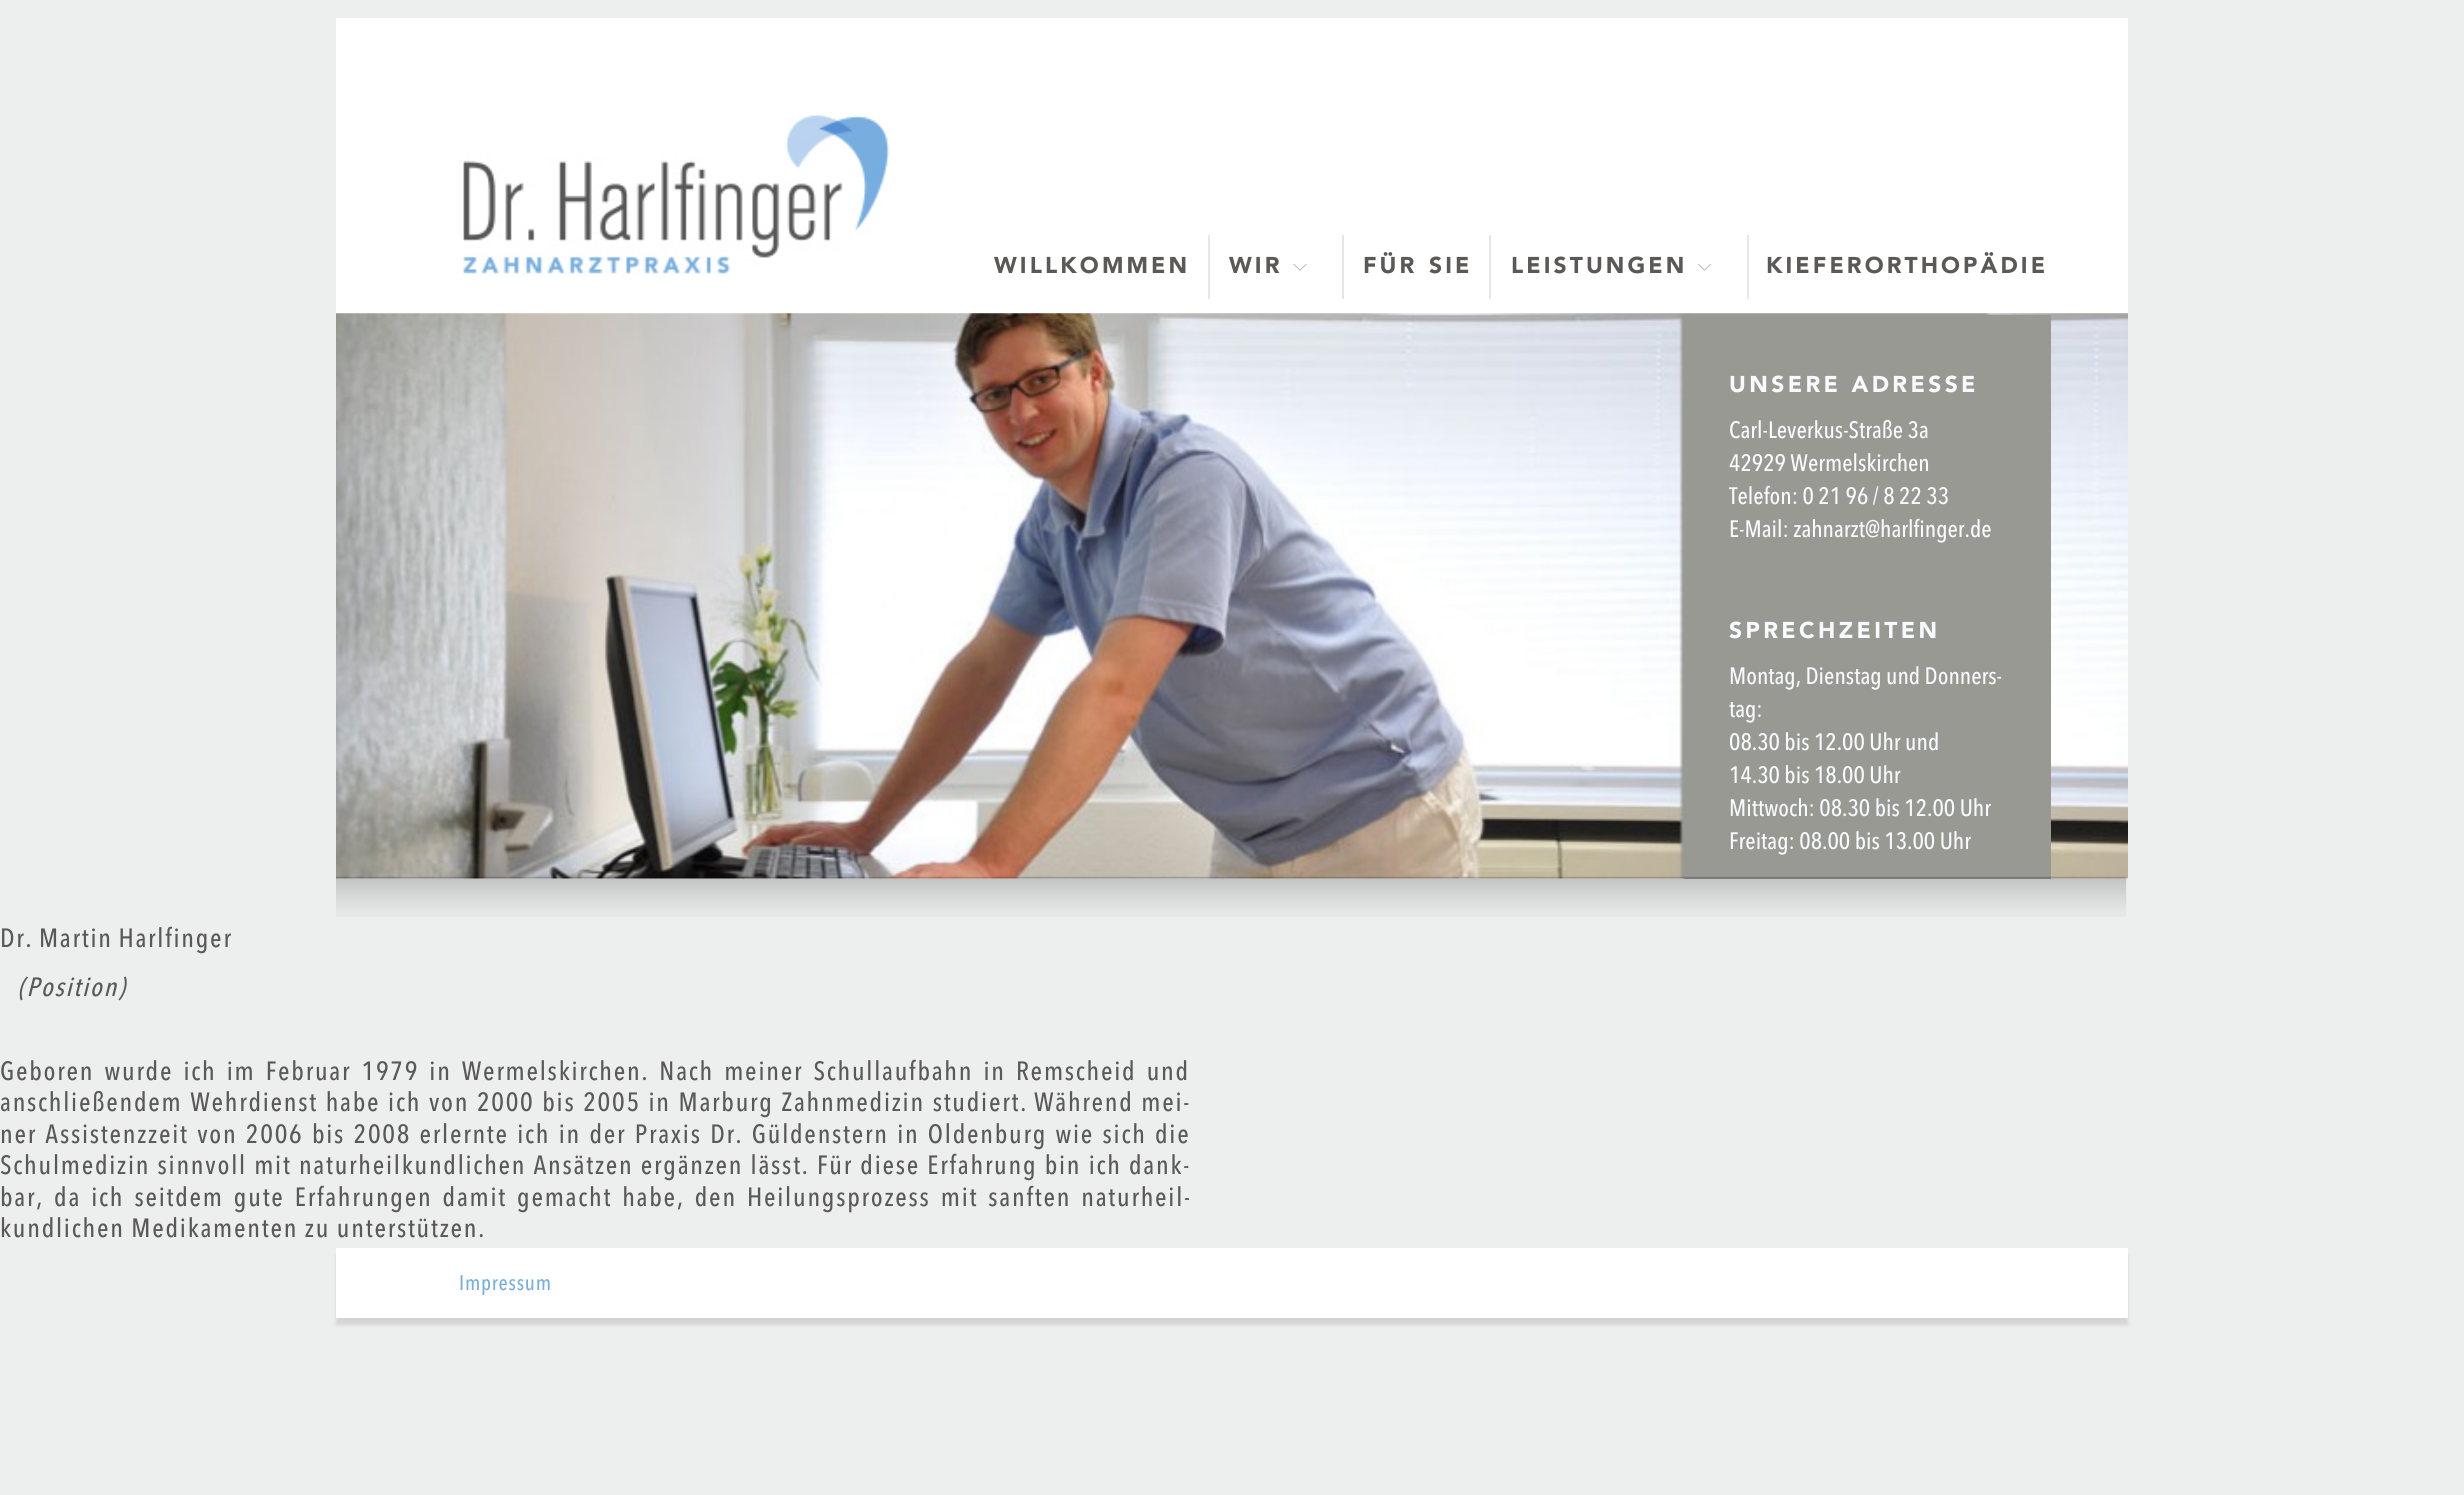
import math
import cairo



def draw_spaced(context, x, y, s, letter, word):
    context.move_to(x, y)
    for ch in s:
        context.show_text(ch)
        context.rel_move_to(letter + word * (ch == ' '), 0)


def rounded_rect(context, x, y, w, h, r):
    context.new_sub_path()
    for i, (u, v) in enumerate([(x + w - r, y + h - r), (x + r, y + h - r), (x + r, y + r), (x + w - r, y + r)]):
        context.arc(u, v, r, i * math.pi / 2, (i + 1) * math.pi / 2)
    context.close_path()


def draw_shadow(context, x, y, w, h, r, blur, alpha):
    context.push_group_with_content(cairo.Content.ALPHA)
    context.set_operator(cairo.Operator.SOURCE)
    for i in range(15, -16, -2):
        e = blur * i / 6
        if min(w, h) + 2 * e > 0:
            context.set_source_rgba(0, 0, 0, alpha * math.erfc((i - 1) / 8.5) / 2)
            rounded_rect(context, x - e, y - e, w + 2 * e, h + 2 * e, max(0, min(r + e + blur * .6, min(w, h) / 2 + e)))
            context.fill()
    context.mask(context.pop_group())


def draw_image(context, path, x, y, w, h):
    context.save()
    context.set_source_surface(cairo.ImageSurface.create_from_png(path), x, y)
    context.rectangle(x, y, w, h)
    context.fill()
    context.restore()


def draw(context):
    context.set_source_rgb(237 / 255, 239 / 255, 239 / 255)
    context.paint()
    context.set_source_rgb(1, 1, 1)
    context.rectangle(336, 18, 1792, 861)
    context.fill()
    draw_image(context, "images/1.png", 463, 115, 427, 163)
    context.set_source_rgb(230 / 255, 230 / 255, 230 / 255)
    context.rectangle(1208, 235, 1, 64)
    context.fill()
    context.set_source_rgb(233 / 255, 233 / 255, 233 / 255)
    context.rectangle(1209, 235, 1, 64)
    context.fill()
    context.set_source_rgb(230 / 255, 230 / 255, 230 / 255)
    context.rectangle(1342, 235, 2, 64)
    context.fill()
    context.set_source_rgb(191 / 255, 191 / 255, 191 / 255)
    context.new_path()
    context.move_to(1293, 264)
    context.line_to(1307, 264)
    context.line_to(1300, 271)
    context.close_path()
    context.fill()
    context.set_source_rgb(1, 1, 1)
    context.new_path()
    context.move_to(1293, 262.5)
    context.line_to(1307, 262.5)
    context.line_to(1300, 269.5)
    context.close_path()
    context.fill()
    context.set_source_rgb(230 / 255, 230 / 255, 230 / 255)
    context.rectangle(1489, 235, 2, 64)
    context.fill()
    context.rectangle(1747, 235, 1, 64)
    context.fill()
    context.set_source_rgb(233 / 255, 233 / 255, 233 / 255)
    context.rectangle(1748, 235, 1, 64)
    context.fill()
    context.set_source_rgb(191 / 255, 191 / 255, 191 / 255)
    context.new_path()
    context.move_to(1697.5, 264)
    context.line_to(1711.5, 264)
    context.line_to(1704.5, 271)
    context.close_path()
    context.fill()
    context.set_source_rgb(1, 1, 1)
    context.new_path()
    context.move_to(1697.5, 262.5)
    context.line_to(1711.5, 262.5)
    context.line_to(1704.5, 269.5)
    context.close_path()
    context.fill()
    draw_image(context, "images/2.png", 336, 313, 1792, 566)
    context.set_source_rgb(152 / 255, 153 / 255, 146 / 255)
    context.rectangle(1684, 315, 367, 564)
    context.fill()
    draw_image(context, "images/3.png", 336, 876, 1791, 41)
    context.set_source_rgb(0, 0, 0)
    draw_shadow(context, 336, 1255, 1792, 70, 0, 2, 0.11)
    context.set_source_rgb(1, 1, 1)
    context.rectangle(336, 1248, 1792, 70)
    context.fill()
    context.select_font_face("Avenir Black")
    context.set_font_size(22.75)
    context.set_source_rgb(90 / 255, 89 / 255, 88 / 255)
    draw_spaced(context, 994, 273, "WILLKOMMEN", 3.1, 0)
    draw_spaced(context, 1229, 273, "WIR", 3.1, 0)
    draw_spaced(context, 1363, 273, "FÜR", 3.1, 0)
    draw_spaced(context, 1429, 273, "SIE", 3.1, 0)
    draw_spaced(context, 1511, 273, "LEISTUNGEN", 3.1, 0)
    draw_spaced(context, 1766, 273, "KIEFERORTHOPÄDIE", 3.1, 0)
    context.set_source_rgb(248 / 255, 250 / 255, 253 / 255)
    draw_spaced(context, 1729, 392, "UNSERE ADRESSE", 3.4, 0)
    context.select_font_face("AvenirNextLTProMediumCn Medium")
    context.set_font_size(23.6)
    context.move_to(1729, 438)
    context.show_text("Carl-Leverkus-Straße 3a")
    context.move_to(1729, 471)
    context.show_text("42929 Wermelskirchen")
    context.move_to(1729, 504)
    context.show_text("Telefon: 0 21 96 / 8 22 33")
    context.move_to(1729, 537)
    context.show_text("E-Mail: zahnarzt@harlfinger.de")
    context.select_font_face("Avenir Black")
    context.set_font_size(22.75)
    draw_spaced(context, 1729, 638, "SPRECHZEITEN", 3.4, 0)
    context.select_font_face("AvenirNextLTProMediumCn Medium")
    context.set_font_size(23.6)
    context.move_to(1729, 684)
    context.show_text("Montag, Dienstag und Donners-")
    context.move_to(1729, 717)
    context.show_text("tag:")
    context.move_to(1729, 750)
    context.show_text("08.30 bis 12.00 Uhr und")
    context.move_to(1729, 783)
    context.show_text("14.30 bis 18.00 Uhr")
    context.move_to(1729, 816)
    context.show_text("Mittwoch: 08.30 bis 12.00 Uhr")
    context.move_to(1729, 849)
    context.show_text("Freitag: 08.00 bis 13.00 Uhr")
    context.set_font_size(26.25)
    context.set_source_rgb(90 / 255, 89 / 255, 88 / 255)
    draw_spaced(context, 0, 947, "Dr. Martin Harlfinger", 1.75, -1)
    context.select_font_face("AvenirNextLTProMediumCn Medium", cairo.FontSlant.ITALIC)
    draw_spaced(context, 18, 996, "(Position)", 1.75, 0)
    context.select_font_face("AvenirNextLTProMediumCn Medium")
    draw_spaced(context, 0, 1080, "Geboren wurde ich im Februar 1979 in Wermelskirchen. Nach meiner Schullaufbahn in Remscheid und", 1.75, 3.5)
    draw_spaced(context, 0, 1111, "anschließendem Wehrdienst habe ich von 2000 bis 2005 in Marburg Zahnmedizin studiert.", 1.75, 1)
    draw_spaced(context, 1034, 1111, "Während mei-", 1.75, 1)
    draw_spaced(context, 0, 1143, "ner Assistenzzeit von 2006 bis 2008 erlernte ich in der Praxis Dr. Güldenstern in Oldenburg wie sich die", 1.75, 1.7)
    draw_spaced(context, 0, 1174, "Schulmedizin sinnvoll mit naturheilkundlichen Ansätzen ergänzen lässt. Für diese Erfahrung bin ich dank-", 1.75, 0.6)
    draw_spaced(context, 0, 1206, "bar, da ich seitdem gute Erfahrungen damit gemacht habe, den Heilungsprozess mit sanften naturheil-", 1.75, 3.4)
    draw_spaced(context, 0, 1237, "kundlichen Medikamenten zu unterstützen.", 1.75, 0)
    context.set_font_size(21)
    context.set_source_rgb(118 / 255, 174 / 255, 223 / 255)
    draw_spaced(context, 459, 1290, "Impressum", 0.75, 0)


surface = cairo.ImageSurface(cairo.Format.RGB24, 2464, 1495)
context = cairo.Context(surface)
options = cairo.FontOptions()
options.set_hint_metrics(cairo.HintMetrics.OFF)
options.set_hint_style(cairo.HintStyle.NONE)
context.set_font_options(options)
context.set_miter_limit(4)
draw(context)
surface.write_to_png("out.png")
